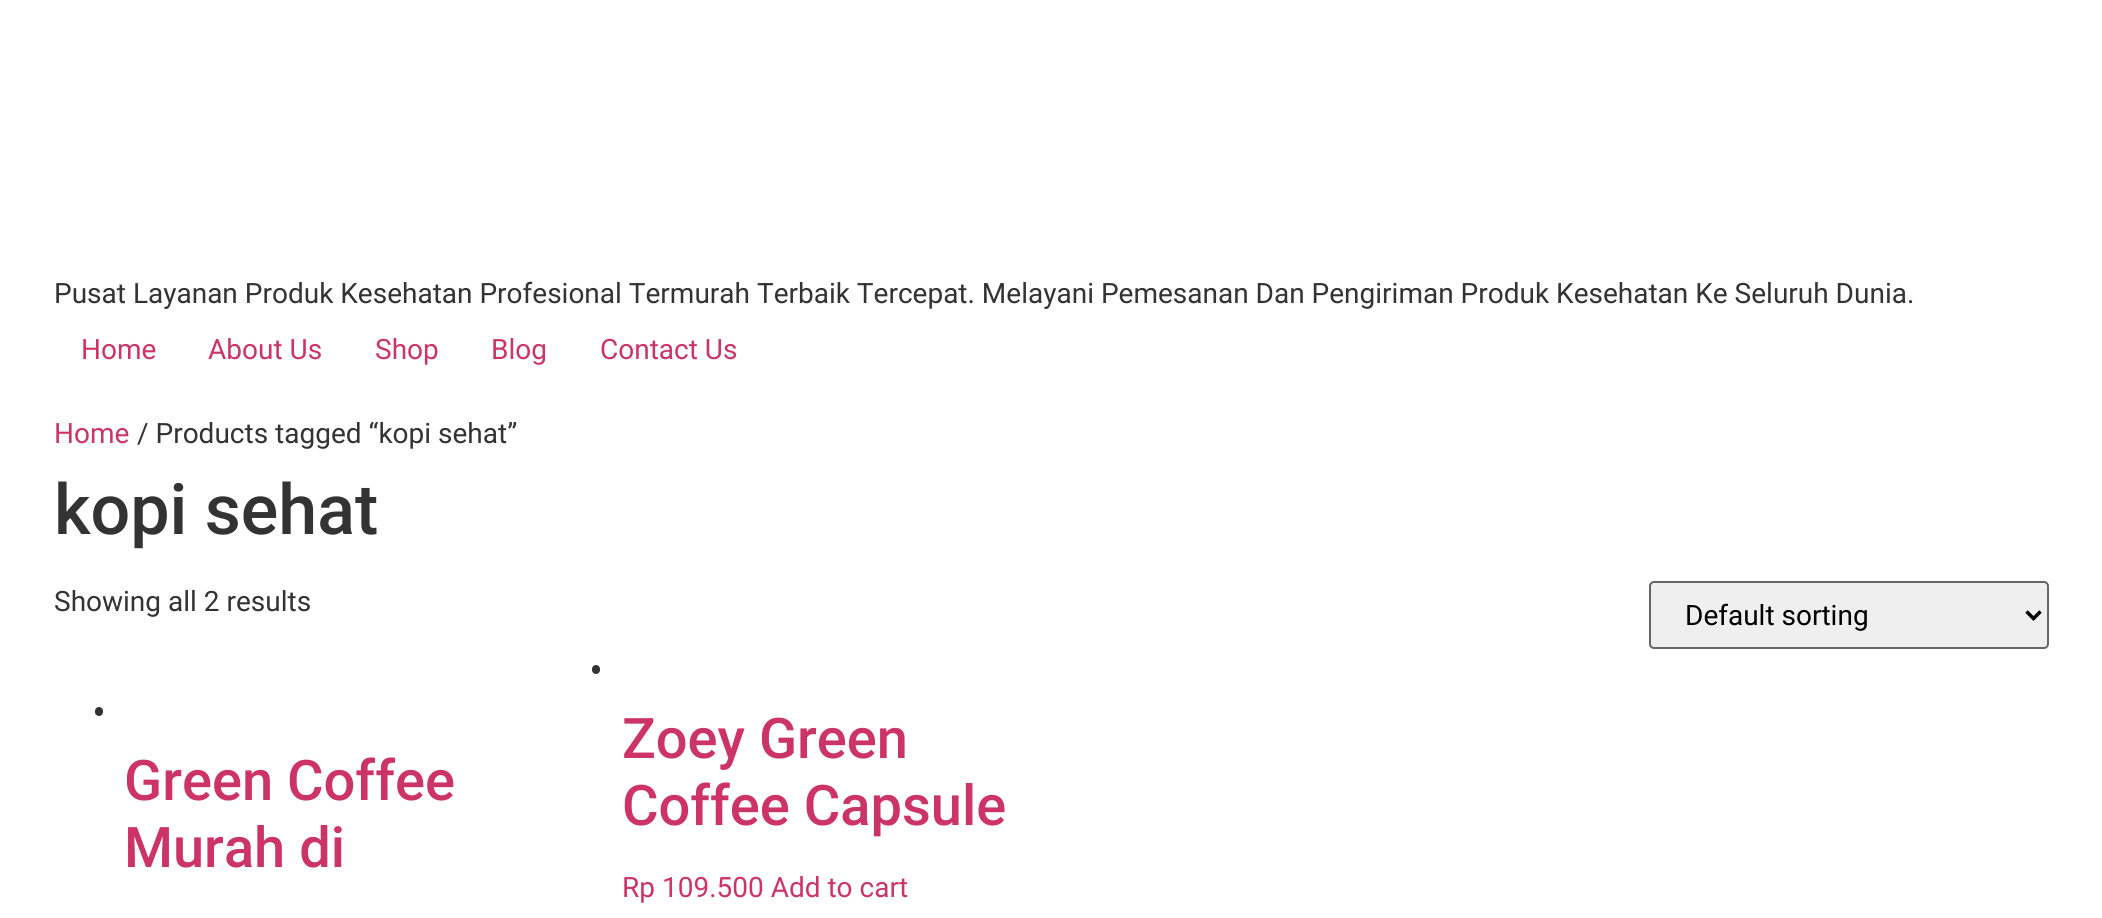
import math
import cairo



def rounded_rect(context, x, y, w, h, r):
    context.new_sub_path()
    for i, (u, v) in enumerate([(x + w - r, y + h - r), (x + r, y + h - r), (x + r, y + r), (x + w - r, y + r)]):
        context.arc(u, v, r, i * math.pi / 2, (i + 1) * math.pi / 2)
    context.close_path()


def draw(context):
    context.set_source_rgb(1, 1, 1)
    context.paint()
    context.set_source_rgb(239 / 255, 239 / 255, 239 / 255)
    rounded_rect(context, 1650, 582, 398, 66, 4)
    context.fill_preserve()
    context.set_source_rgb(102 / 255, 102 / 255, 102 / 255)
    context.stroke()
    context.new_path()
    context.move_to(2026.5, 611.5)
    context.line_to(2033.5, 618.5)
    context.line_to(2040.5, 611.5)
    context.set_source_rgb(0, 0, 0)
    context.set_line_width(3.5)
    context.stroke()
    context.set_source_rgb(51 / 255, 51 / 255, 51 / 255)
    rounded_rect(context, 95, 707, 8, 9, 4)
    context.fill()
    rounded_rect(context, 592, 665, 8, 9, 4)
    context.fill()
    context.select_font_face("Roboto")
    context.set_font_size(28)
    context.move_to(54, 303)
    context.show_text("Pusat Layanan Produk Kesehatan Profesional Termurah Terbaik Tercepat. Melayani Pemesanan Dan Pengiriman Produk Kesehatan Ke Seluruh Dunia.")
    context.set_source_rgb(204 / 255, 51 / 255, 102 / 255)
    context.move_to(81, 359)
    context.show_text("Home")
    context.move_to(208, 359)
    context.show_text("About Us")
    context.move_to(375, 359)
    context.show_text("Shop")
    context.move_to(491, 359)
    context.show_text("Blog")
    context.move_to(600, 359)
    context.show_text("Contact Us")
    context.move_to(54, 443)
    context.show_text("Home")
    context.set_source_rgb(51 / 255, 51 / 255, 51 / 255)
    context.move_to(137, 443)
    context.show_text("/ Products tagged “kopi sehat”")
    context.select_font_face("Roboto Medium")
    context.set_font_size(70)
    context.move_to(54, 534)
    context.show_text("kopi sehat")
    context.select_font_face("Roboto")
    context.set_font_size(28)
    context.move_to(54, 611)
    context.show_text("Showing all 2 results")
    context.set_source_rgb(0, 0, 0)
    context.move_to(1685, 625)
    context.show_text("Default sorting")
    context.select_font_face("Roboto Medium")
    context.set_font_size(56)
    context.set_source_rgb(204 / 255, 51 / 255, 102 / 255)
    context.move_to(124, 800)
    context.show_text("Green Coffee")
    context.move_to(124, 867)
    context.show_text("Murah di")
    context.move_to(622, 758)
    context.show_text("Zoey Green")
    context.move_to(622, 825)
    context.show_text("Coffee Capsule")
    context.select_font_face("Roboto")
    context.set_font_size(28)
    context.move_to(622, 897)
    context.show_text("Rp 109.500 Add to cart")


surface = cairo.ImageSurface(cairo.Format.RGB24, 2102, 918)
context = cairo.Context(surface)
options = cairo.FontOptions()
options.set_hint_metrics(cairo.HintMetrics.OFF)
options.set_hint_style(cairo.HintStyle.NONE)
context.set_font_options(options)
context.set_miter_limit(4)
draw(context)
surface.write_to_png("out.png")
